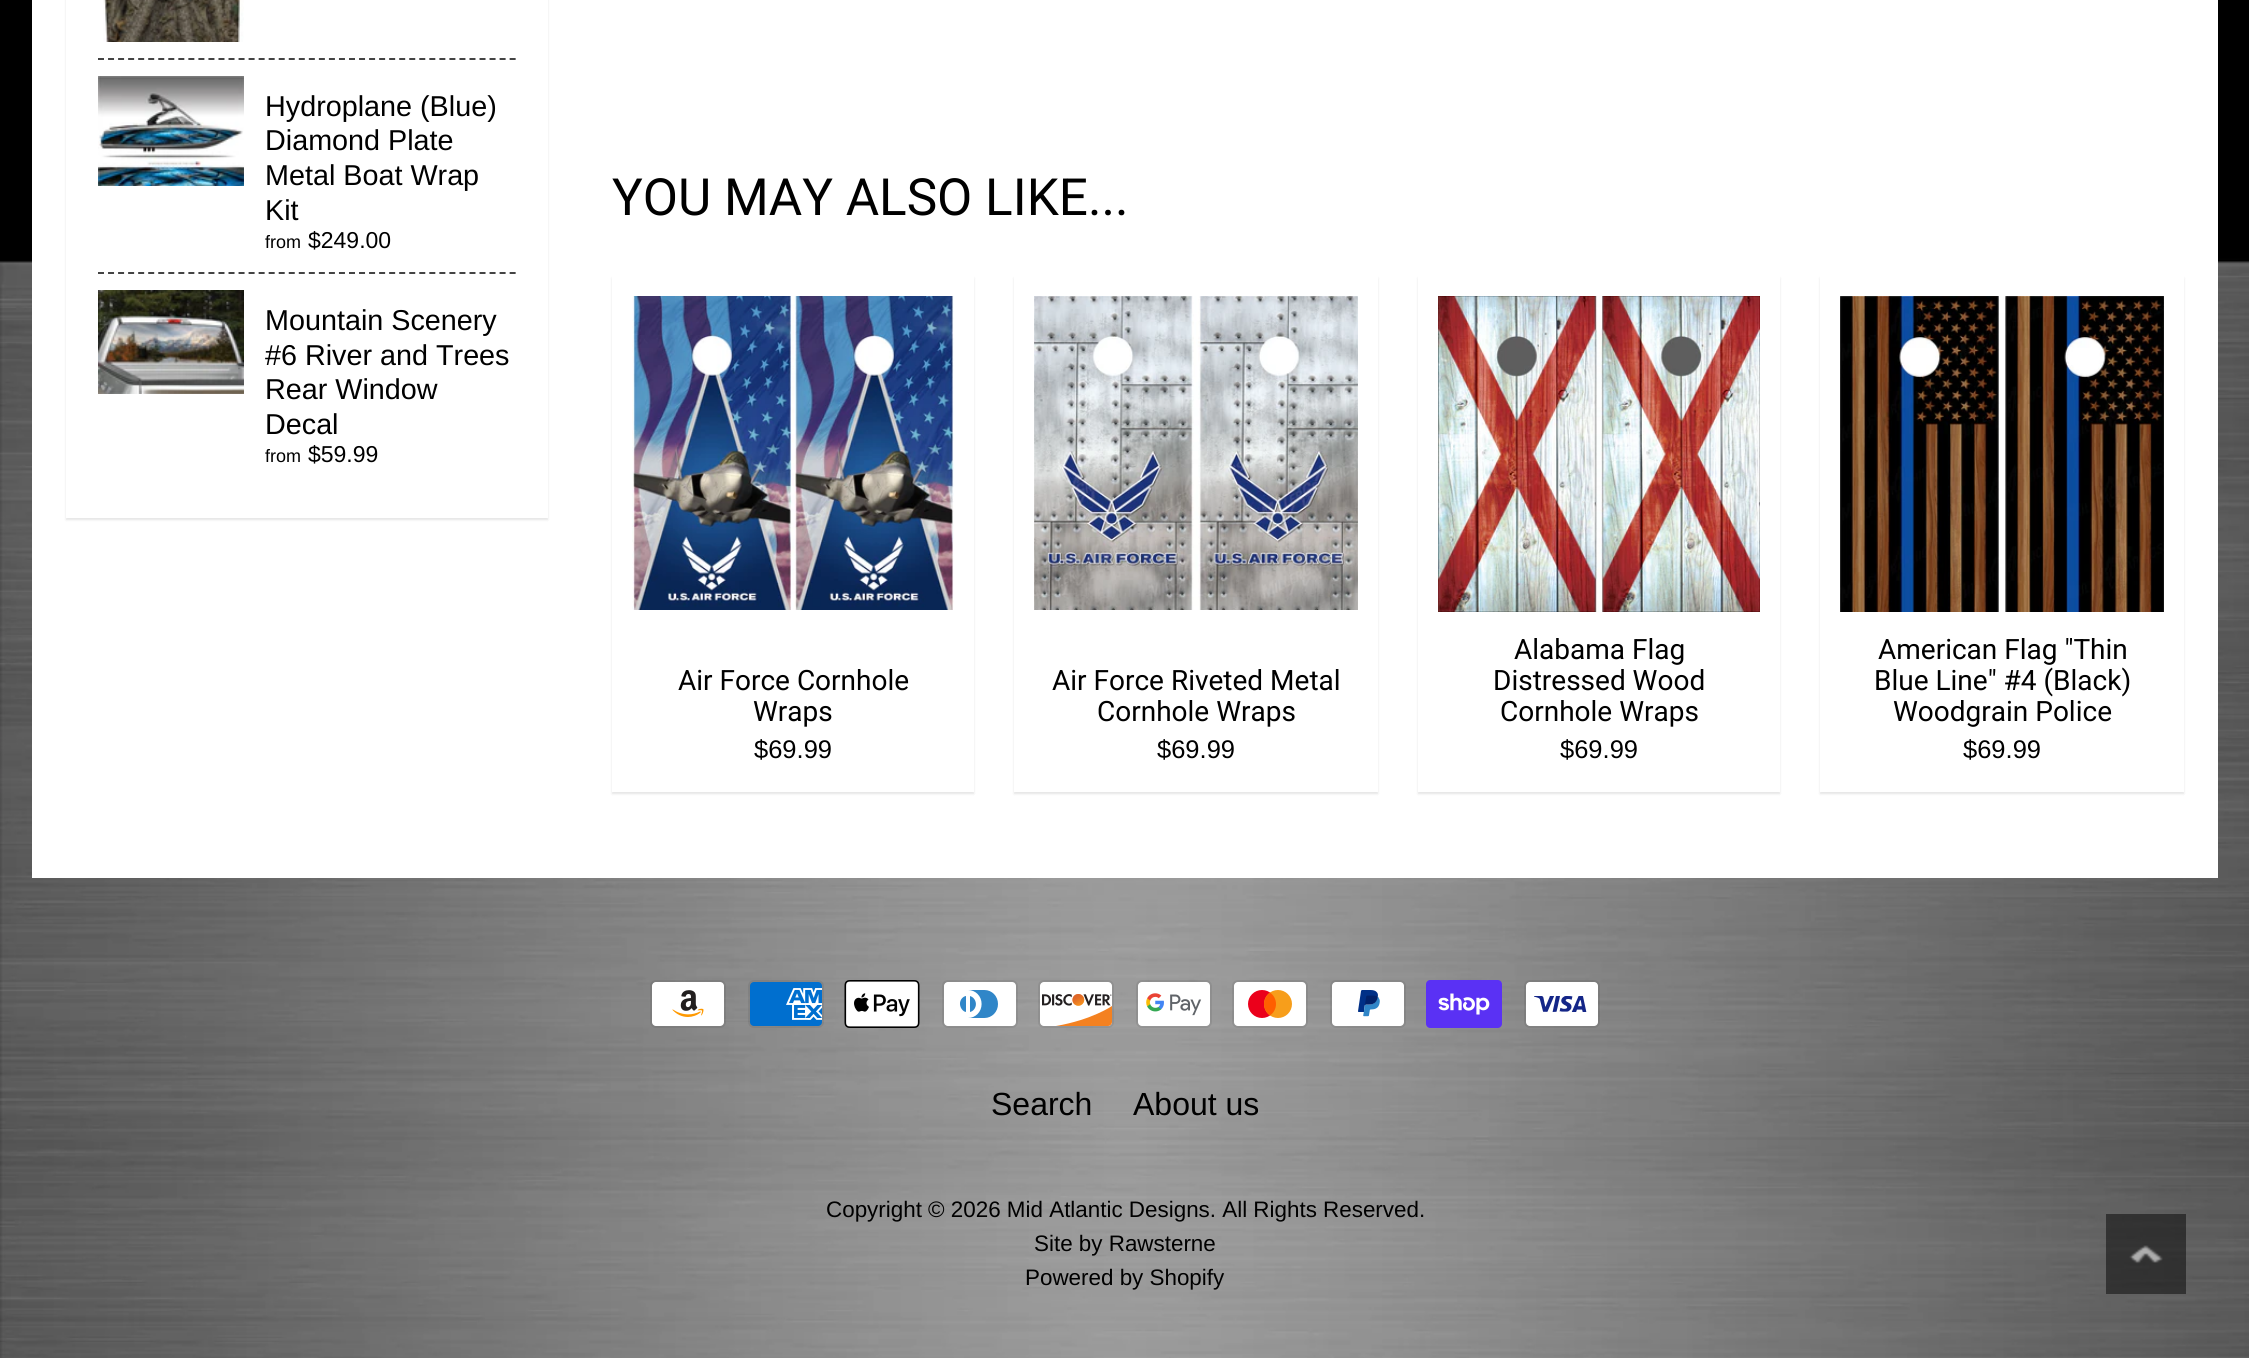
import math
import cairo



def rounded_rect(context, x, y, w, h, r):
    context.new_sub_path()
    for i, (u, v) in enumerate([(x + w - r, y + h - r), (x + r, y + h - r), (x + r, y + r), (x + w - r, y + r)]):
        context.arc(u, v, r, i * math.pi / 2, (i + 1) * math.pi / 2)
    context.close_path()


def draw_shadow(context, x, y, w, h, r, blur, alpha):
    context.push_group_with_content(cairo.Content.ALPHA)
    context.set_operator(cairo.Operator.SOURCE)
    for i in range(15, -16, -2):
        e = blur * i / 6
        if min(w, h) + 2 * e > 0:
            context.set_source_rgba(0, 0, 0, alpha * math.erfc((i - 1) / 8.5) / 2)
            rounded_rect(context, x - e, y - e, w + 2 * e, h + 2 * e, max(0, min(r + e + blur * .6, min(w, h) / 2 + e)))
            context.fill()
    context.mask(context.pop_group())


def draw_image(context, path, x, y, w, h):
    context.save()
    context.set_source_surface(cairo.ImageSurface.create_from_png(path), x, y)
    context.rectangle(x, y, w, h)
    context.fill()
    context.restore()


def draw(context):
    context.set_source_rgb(1, 1, 1)
    context.paint()
    draw_image(context, "images/1.png", 0, 0, 2249, 1358)
    context.set_source_rgb(1, 1, 1)
    context.rectangle(32, 0, 2186, 878)
    context.fill()
    context.save()
    context.set_fill_rule(cairo.FillRule.EVEN_ODD)
    context.new_path()
    context.move_to(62, 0)
    context.line_to(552, 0)
    context.line_to(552, 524)
    context.line_to(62, 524)
    context.close_path()
    context.move_to(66, -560)
    context.line_to(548, -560)
    context.line_to(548, 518)
    context.line_to(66, 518)
    context.close_path()
    context.clip()
    context.set_source_rgb(0, 0, 0)
    draw_shadow(context, 66, -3, 482, 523, 0, 1, 0.1)
    context.restore()
    draw_image(context, "images/2.png", 103, 0, 141, 42)
    context.new_path()
    context.move_to(98, 59)
    context.line_to(516, 59)
    context.set_source_rgb(68 / 255, 68 / 255, 68 / 255)
    context.set_dash([6, 4.04])
    context.stroke()
    draw_image(context, "images/3.png", 98, 76, 146, 110)
    context.new_path()
    context.move_to(98, 273)
    context.line_to(516, 273)
    context.stroke()
    draw_image(context, "images/4.png", 98, 290, 146, 104)
    context.save()
    context.set_fill_rule(cairo.FillRule.EVEN_ODD)
    context.new_path()
    context.move_to(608, 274)
    context.line_to(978, 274)
    context.line_to(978, 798)
    context.line_to(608, 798)
    context.close_path()
    context.move_to(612, 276)
    context.line_to(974, 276)
    context.line_to(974, 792)
    context.line_to(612, 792)
    context.close_path()
    context.clip()
    context.set_source_rgb(0, 0, 0)
    draw_shadow(context, 612, 278, 362, 516, 0, 1, 0.1)
    context.restore()
    draw_image(context, "images/5.png", 632, 296, 322, 314)
    context.save()
    context.set_fill_rule(cairo.FillRule.EVEN_ODD)
    context.new_path()
    context.move_to(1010, 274)
    context.line_to(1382, 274)
    context.line_to(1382, 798)
    context.line_to(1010, 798)
    context.close_path()
    context.move_to(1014, 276)
    context.line_to(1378, 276)
    context.line_to(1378, 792)
    context.line_to(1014, 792)
    context.close_path()
    context.clip()
    context.set_source_rgb(0, 0, 0)
    draw_shadow(context, 1014, 278, 364, 516, 0, 1, 0.1)
    context.restore()
    draw_image(context, "images/6.png", 1034, 296, 324, 314)
    context.save()
    context.set_fill_rule(cairo.FillRule.EVEN_ODD)
    context.new_path()
    context.move_to(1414, 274)
    context.line_to(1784, 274)
    context.line_to(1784, 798)
    context.line_to(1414, 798)
    context.close_path()
    context.move_to(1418, 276)
    context.line_to(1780, 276)
    context.line_to(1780, 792)
    context.line_to(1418, 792)
    context.close_path()
    context.clip()
    context.set_source_rgb(0, 0, 0)
    draw_shadow(context, 1418, 278, 362, 516, 0, 1, 0.1)
    context.restore()
    draw_image(context, "images/7.png", 1438, 296, 322, 316)
    context.save()
    context.set_fill_rule(cairo.FillRule.EVEN_ODD)
    context.new_path()
    context.move_to(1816, 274)
    context.line_to(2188, 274)
    context.line_to(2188, 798)
    context.line_to(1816, 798)
    context.close_path()
    context.move_to(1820, 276)
    context.line_to(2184, 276)
    context.line_to(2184, 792)
    context.line_to(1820, 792)
    context.close_path()
    context.clip()
    context.set_source_rgb(0, 0, 0)
    draw_shadow(context, 1820, 278, 364, 516, 0, 1, 0.1)
    context.restore()
    draw_image(context, "images/8.png", 1840, 296, 324, 316)
    draw_image(context, "images/9.png", 650, 980, 76, 48)
    draw_image(context, "images/10.png", 748, 980, 76, 48)
    draw_image(context, "images/11.png", 844, 980, 76, 48)
    draw_image(context, "images/12.png", 942, 980, 76, 48)
    draw_image(context, "images/13.png", 1038, 980, 76, 48)
    draw_image(context, "images/14.png", 1136, 980, 76, 48)
    draw_image(context, "images/15.png", 1232, 980, 76, 48)
    draw_image(context, "images/16.png", 1330, 980, 76, 48)
    draw_image(context, "images/17.png", 1426, 980, 76, 48)
    draw_image(context, "images/18.png", 1524, 980, 76, 48)
    draw_image(context, "images/19.png", 2106, 1214, 80, 80)
    context.select_font_face("Liberation Sans")
    context.set_font_size(28.75)
    context.set_source_rgb(0, 0, 0)
    context.move_to(265, 116)
    context.show_text("Hydroplane (Blue)")
    context.move_to(265, 150)
    context.show_text("Diamond Plate")
    context.move_to(265, 185)
    context.show_text("Metal Boat Wrap")
    context.move_to(265, 220)
    context.show_text("Kit")
    context.set_font_size(18)
    context.move_to(265, 248)
    context.show_text("from")
    context.set_font_size(23)
    context.move_to(308, 248)
    context.show_text("$249.00")
    context.set_font_size(28.75)
    context.move_to(265, 330)
    context.show_text("Mountain Scenery")
    context.move_to(265, 365)
    context.show_text("#6 River and Trees")
    context.move_to(265, 399)
    context.show_text("Rear Window")
    context.move_to(265, 434)
    context.show_text("Decal")
    context.set_font_size(18)
    context.move_to(265, 462)
    context.show_text("from")
    context.set_font_size(23)
    context.move_to(308, 462)
    context.show_text("$59.99")
    context.select_font_face("Roboto")
    context.set_font_size(51.25)
    context.move_to(612, 215)
    context.show_text("YOU MAY ALSO LIKE...")
    context.set_font_size(28)
    context.move_to(678, 690)
    context.show_text("Air Force Cornhole")
    context.move_to(753, 721)
    context.show_text("Wraps")
    context.select_font_face("Liberation Sans")
    context.set_font_size(25.5)
    context.move_to(754, 758)
    context.show_text("$69.99")
    context.select_font_face("Roboto")
    context.set_font_size(28)
    context.move_to(1052, 690)
    context.show_text("Air Force Riveted Metal")
    context.move_to(1097, 721)
    context.show_text("Cornhole Wraps")
    context.select_font_face("Liberation Sans")
    context.set_font_size(25.5)
    context.move_to(1157, 758)
    context.show_text("$69.99")
    context.select_font_face("Roboto")
    context.set_font_size(28)
    context.move_to(1514, 659)
    context.show_text("Alabama Flag")
    context.move_to(1493, 690)
    context.show_text("Distressed Wood")
    context.move_to(1500, 721)
    context.show_text("Cornhole Wraps")
    context.select_font_face("Liberation Sans")
    context.set_font_size(25.5)
    context.move_to(1560, 758)
    context.show_text("$69.99")
    context.select_font_face("Roboto")
    context.set_font_size(28)
    context.move_to(1878, 659)
    context.show_text("American Flag \"Thin")
    context.move_to(1874, 690)
    context.show_text("Blue Line\" #4 (Black)")
    context.move_to(1893, 721)
    context.show_text("Woodgrain Police")
    context.select_font_face("Liberation Sans")
    context.set_font_size(25.5)
    context.move_to(1963, 758)
    context.show_text("$69.99")
    context.set_font_size(32)
    context.move_to(991, 1115)
    context.show_text("Search")
    context.move_to(1133, 1115)
    context.show_text("About us")
    context.set_font_size(22.4)
    context.move_to(826, 1217)
    context.show_text("Copyright © 2026 Mid Atlantic Designs. All Rights Reserved.")
    context.move_to(1034, 1251)
    context.show_text("Site by Rawsterne")
    context.move_to(1025, 1285)
    context.show_text("Powered by Shopify")


surface = cairo.ImageSurface(cairo.Format.RGB24, 2249, 1358)
context = cairo.Context(surface)
options = cairo.FontOptions()
options.set_hint_metrics(cairo.HintMetrics.OFF)
options.set_hint_style(cairo.HintStyle.NONE)
context.set_font_options(options)
context.set_miter_limit(4)
draw(context)
surface.write_to_png("out.png")
